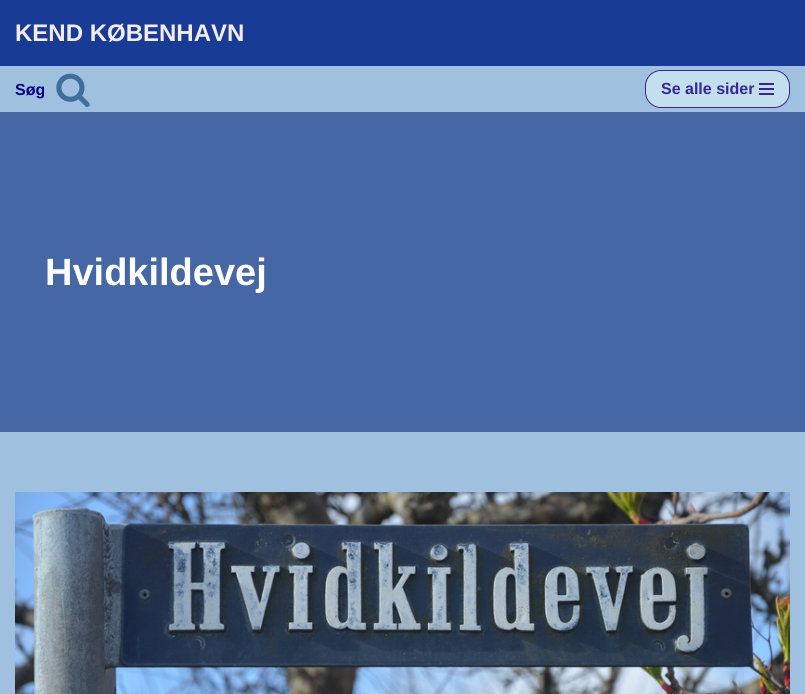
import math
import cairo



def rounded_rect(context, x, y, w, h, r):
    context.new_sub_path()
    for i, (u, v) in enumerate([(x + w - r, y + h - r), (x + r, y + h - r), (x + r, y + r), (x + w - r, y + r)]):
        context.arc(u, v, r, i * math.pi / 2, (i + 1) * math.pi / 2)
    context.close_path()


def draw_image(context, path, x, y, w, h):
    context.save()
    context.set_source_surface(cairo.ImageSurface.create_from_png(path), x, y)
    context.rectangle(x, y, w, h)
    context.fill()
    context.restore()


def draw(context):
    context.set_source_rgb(159 / 255, 192 / 255, 222 / 255)
    context.paint()
    context.set_source_rgb(70 / 255, 103 / 255, 165 / 255)
    context.rectangle(0, 112, 805, 320)
    context.fill()
    context.set_source_rgb(24 / 255, 60 / 255, 150 / 255)
    context.rectangle(0, 0, 805, 66)
    context.fill()
    draw_image(context, "images/1.png", 56, 73, 34, 34)
    context.set_source_rgb(195 / 255, 222 / 255, 236 / 255)
    rounded_rect(context, 645.5, 70.5, 144, 37, 15.5)
    context.fill_preserve()
    context.set_source_rgb(55 / 255, 38 / 255, 152 / 255)
    context.set_line_width(1)
    context.stroke()
    context.rectangle(759, 83, 15, 2)
    context.fill()
    context.rectangle(759, 88, 15, 2)
    context.fill()
    context.rectangle(759, 93, 15, 2)
    context.fill()
    draw_image(context, "images/2.png", 15, 492, 775, 202)
    context.select_font_face("Liberation Sans", cairo.FontSlant.NORMAL, cairo.FontWeight.BOLD)
    context.set_font_size(24)
    context.set_source_rgb(244 / 255, 236 / 255, 236 / 255)
    context.move_to(15, 41)
    context.show_text("KEND KØBENHAVN")
    context.set_font_size(16)
    context.set_source_rgb(0, 0, 128 / 255)
    context.move_to(15, 95)
    context.show_text("Søg")
    context.set_source_rgb(55 / 255, 38 / 255, 152 / 255)
    context.move_to(661, 94)
    context.show_text("Se alle sider")
    context.set_font_size(38)
    context.set_source_rgb(1, 1, 1)
    context.move_to(45, 285)
    context.show_text("Hvidkildevej")


surface = cairo.ImageSurface(cairo.Format.RGB24, 805, 694)
context = cairo.Context(surface)
options = cairo.FontOptions()
options.set_hint_metrics(cairo.HintMetrics.OFF)
options.set_hint_style(cairo.HintStyle.NONE)
context.set_font_options(options)
context.set_miter_limit(4)
draw(context)
surface.write_to_png("out.png")
